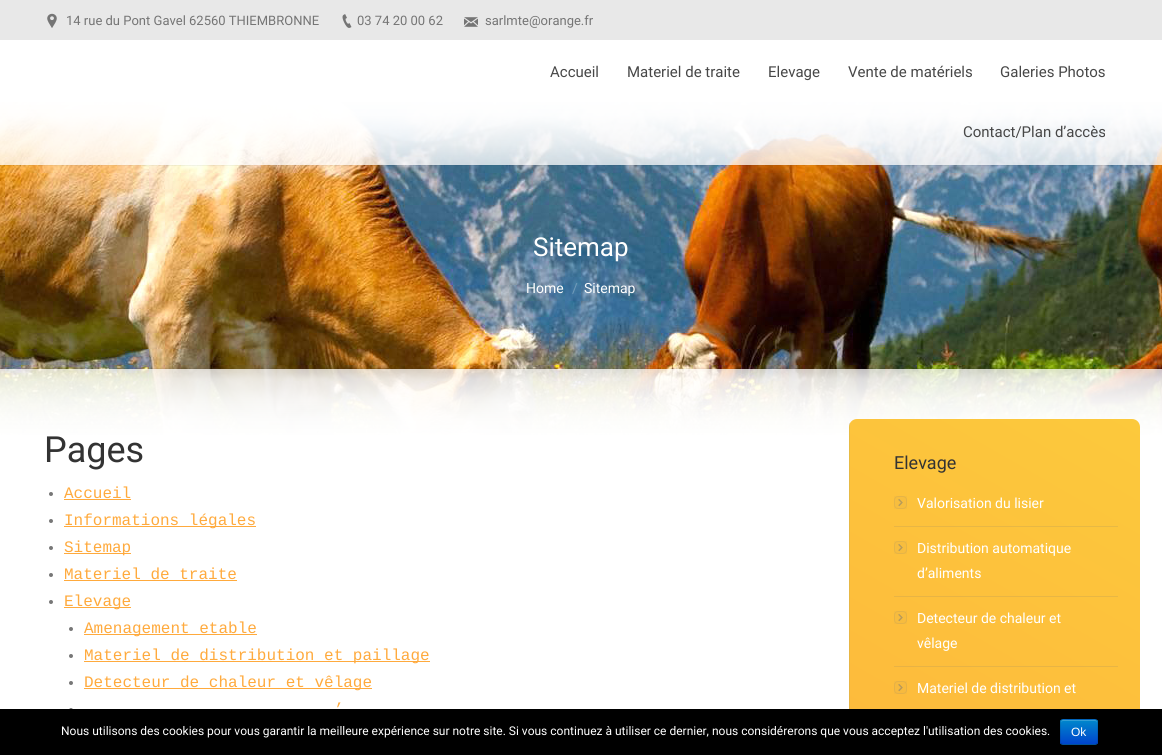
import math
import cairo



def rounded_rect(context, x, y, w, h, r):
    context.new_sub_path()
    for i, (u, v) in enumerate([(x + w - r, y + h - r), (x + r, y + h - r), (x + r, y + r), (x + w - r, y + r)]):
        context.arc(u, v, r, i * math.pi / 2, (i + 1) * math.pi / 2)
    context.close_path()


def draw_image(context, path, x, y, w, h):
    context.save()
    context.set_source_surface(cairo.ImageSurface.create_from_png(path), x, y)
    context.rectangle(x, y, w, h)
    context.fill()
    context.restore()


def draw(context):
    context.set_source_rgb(1, 1, 1)
    context.paint()
    draw_image(context, "images/4.png", 0, 102, 1162, 333)
    context.set_source_rgba(5 / 255, 38 / 255, 57 / 255, 0.05)
    context.rectangle(0, 165, 1162, 1)
    context.fill()
    gradient = cairo.LinearGradient(581, 165, 581, 0)
    gradient.add_color_stop_rgba(0, 1, 1, 1, 0.75)
    gradient.add_color_stop_rgba(0.06, 1, 1, 1, 0.8)
    gradient.add_color_stop_rgba(0.12, 1, 1, 1, 0.86)
    gradient.add_color_stop_rgba(0.18, 1, 1, 1, 0.9)
    gradient.add_color_stop_rgba(0.24, 1, 1, 1, 0.94)
    gradient.add_color_stop_rgba(0.3, 1, 1, 1, 0.98)
    gradient.add_color_stop_rgba(0.36, 1, 1, 1, 0.99)
    gradient.add_color_stop_rgba(0.42, 1, 1, 1, 1)
    context.set_source(gradient)
    context.rectangle(0, 102, 1162, 63)
    context.fill()
    context.set_source_rgb(232 / 255, 232 / 255, 232 / 255)
    context.rectangle(0, 0, 1162, 40)
    context.fill()
    draw_image(context, "images/1.png", 47, 13, 10, 15)
    draw_image(context, "images/2.png", 342, 14, 10, 14)
    draw_image(context, "images/3.png", 464, 17, 14, 10)
    context.set_source_rgba(5 / 255, 38 / 255, 57 / 255, 0.05)
    context.rectangle(0, 368, 1162, 1)
    context.fill()
    context.set_source_rgb(119 / 255, 119 / 255, 119 / 255)
    context.arc(51, 494, 2, 0, 2 * math.pi)
    context.fill()
    context.set_source_rgb(1, 170 / 255, 61 / 255)
    context.rectangle(64, 499, 67, 1)
    context.fill()
    context.set_source_rgb(119 / 255, 119 / 255, 119 / 255)
    context.arc(51, 521, 2, 0, 2 * math.pi)
    context.fill()
    context.set_source_rgb(1, 170 / 255, 61 / 255)
    context.rectangle(64, 526, 192, 1)
    context.fill()
    context.set_source_rgb(119 / 255, 119 / 255, 119 / 255)
    context.arc(51, 548, 2, 0, 2 * math.pi)
    context.fill()
    context.set_source_rgb(1, 170 / 255, 61 / 255)
    context.rectangle(64, 553, 67, 1)
    context.fill()
    context.set_source_rgb(119 / 255, 119 / 255, 119 / 255)
    context.arc(51, 575, 2, 0, 2 * math.pi)
    context.fill()
    context.set_source_rgb(1, 170 / 255, 61 / 255)
    context.rectangle(64, 580, 173, 1)
    context.fill()
    context.set_source_rgb(119 / 255, 119 / 255, 119 / 255)
    context.arc(51, 602, 2, 0, 2 * math.pi)
    context.fill()
    context.set_source_rgb(1, 170 / 255, 61 / 255)
    context.rectangle(64, 607, 67, 1)
    context.fill()
    context.set_source_rgb(119 / 255, 119 / 255, 119 / 255)
    context.arc(71, 629, 2, 0, 2 * math.pi)
    context.fill()
    context.set_source_rgb(1, 170 / 255, 61 / 255)
    context.rectangle(84, 634, 173, 1)
    context.fill()
    context.set_source_rgb(119 / 255, 119 / 255, 119 / 255)
    context.arc(71, 656, 2, 0, 2 * math.pi)
    context.fill()
    context.set_source_rgb(1, 170 / 255, 61 / 255)
    context.rectangle(84, 661, 346, 1)
    context.fill()
    context.set_source_rgb(119 / 255, 119 / 255, 119 / 255)
    context.arc(71, 683, 2, 0, 2 * math.pi)
    context.fill()
    context.set_source_rgb(1, 170 / 255, 61 / 255)
    context.rectangle(84, 688, 288, 1)
    context.fill()
    context.set_source_rgb(119 / 255, 119 / 255, 119 / 255)
    context.arc(71, 710, 2, 0, 2 * math.pi)
    context.fill()
    context.save()
    rounded_rect(context, 849, 419, 291, 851, 8)
    context.clip()
    gradient = cairo.LinearGradient(485, 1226, 925, 463)
    gradient.add_color_stop_rgba(0, 1, 170 / 255, 61 / 255, 1)
    gradient.add_color_stop_rgba(1, 252 / 255, 201 / 255, 60 / 255, 1)
    context.set_source(gradient)
    context.rectangle(849, 419, 1, 290)
    context.fill()
    gradient = cairo.LinearGradient(775, 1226, 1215, 463)
    gradient.add_color_stop_rgba(0, 1, 170 / 255, 61 / 255, 1)
    gradient.add_color_stop_rgba(1, 252 / 255, 201 / 255, 60 / 255, 1)
    context.set_source(gradient)
    context.new_path()
    context.move_to(850, 419)
    context.line_to(1132, 419)
    context.curve_to(1136.5, 419, 1140, 422.5, 1140, 427)
    context.line_to(1140, 755)
    context.curve_to(1140, 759.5, 1136.5, 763, 1132, 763)
    context.line_to(850, 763)
    context.close_path()
    context.fill()
    context.restore()
    context.set_source_rgba(119 / 255, 119 / 255, 119 / 255, 0.15)
    context.rectangle(849, 423, 1, 286)
    context.fill()
    draw_image(context, "images/5.png", 898, 499, 5, 8)
    context.set_source_rgba(119 / 255, 119 / 255, 119 / 255, 0.04)
    context.rectangle(894, 496, 13, 13)
    context.fill()
    rounded_rect(context, 894.5, 496.5, 12, 12, 3.5)
    context.set_source_rgb(229 / 255, 180 / 255, 71 / 255)
    context.set_line_width(1)
    context.stroke()
    context.set_source_rgba(119 / 255, 119 / 255, 119 / 255, 0.15)
    context.rectangle(894, 526, 224, 1)
    context.fill()
    draw_image(context, "images/6.png", 898, 544, 5, 8)
    context.set_source_rgba(119 / 255, 119 / 255, 119 / 255, 0.04)
    context.rectangle(894, 541, 13, 13)
    context.fill()
    rounded_rect(context, 894.5, 541.5, 12, 12, 3.5)
    context.set_source_rgb(229 / 255, 180 / 255, 71 / 255)
    context.stroke()
    context.set_source_rgba(119 / 255, 119 / 255, 119 / 255, 0.15)
    context.rectangle(894, 596, 224, 1)
    context.fill()
    draw_image(context, "images/7.png", 898, 614, 5, 8)
    context.set_source_rgba(119 / 255, 119 / 255, 119 / 255, 0.04)
    context.rectangle(894, 611, 13, 13)
    context.fill()
    rounded_rect(context, 894.5, 611.5, 12, 12, 3.5)
    context.set_source_rgb(229 / 255, 178 / 255, 71 / 255)
    context.stroke()
    context.set_source_rgba(119 / 255, 119 / 255, 119 / 255, 0.15)
    context.rectangle(894, 666, 224, 1)
    context.fill()
    draw_image(context, "images/8.png", 898, 684, 5, 8)
    context.set_source_rgba(119 / 255, 119 / 255, 119 / 255, 0.04)
    context.rectangle(894, 681, 13, 13)
    context.fill()
    rounded_rect(context, 894.5, 681.5, 12, 12, 3.5)
    context.set_source_rgb(229 / 255, 176 / 255, 71 / 255)
    context.stroke()
    context.set_source_rgb(0, 0, 0)
    context.rectangle(0, 709, 1162, 46)
    context.fill()
    context.set_source_rgb(0, 109 / 255, 204 / 255)
    rounded_rect(context, 1060, 719, 38, 26, 3)
    context.fill()
    context.save()
    rounded_rect(context, 1060, 719, 38, 26, 3)
    context.clip()
    gradient = cairo.LinearGradient(1079, 720, 1079, 744)
    gradient.add_color_stop_rgba(0, 0, 136 / 255, 204 / 255, 1)
    gradient.add_color_stop_rgba(1, 0, 68 / 255, 204 / 255, 1)
    context.set_source(gradient)
    context.rectangle(1060, 720, 38, 24)
    context.fill()
    context.restore()
    context.set_source_rgba(1, 1, 1, 0.2)
    context.new_path()
    context.move_to(1063, 721)
    context.line_to(1095, 721)
    context.curve_to(1096, 721, 1097, 722, 1097, 723)
    context.curve_to(1097, 718.5, 1093.5, 720, 1089.5, 720)
    context.line_to(1068.5, 720)
    context.curve_to(1064.5, 720, 1061, 718.5, 1061, 723)
    context.curve_to(1061, 722, 1062, 721, 1063, 721)
    context.close_path()
    context.fill()
    context.new_path()
    context.move_to(1097, 744)
    context.curve_to(1096.5, 744, 1095.5, 744.5, 1095, 744.5)
    context.line_to(1063, 744.5)
    context.curve_to(1062.5, 744.5, 1061.5, 744, 1061, 744)
    context.set_source_rgba(0, 0, 0, 0.25)
    context.stroke()
    context.new_path()
    context.move_to(1061, 744)
    context.curve_to(1061, 743.5, 1060.5, 742.5, 1060.5, 742)
    context.line_to(1060.5, 722)
    context.curve_to(1060.5, 721.5, 1061, 720.5, 1061, 720)
    context.curve_to(1061.5, 720, 1062.5, 719.5, 1063, 719.5)
    context.line_to(1095, 719.5)
    context.curve_to(1095.5, 719.5, 1096.5, 720, 1097, 720)
    context.curve_to(1097, 720.5, 1097.5, 721.5, 1097.5, 722)
    context.line_to(1097.5, 742)
    context.curve_to(1097.5, 742.5, 1097, 743.5, 1097, 744)
    context.set_source_rgba(0, 0, 0, 0.1)
    context.stroke()
    context.select_font_face("Roboto")
    context.set_font_size(13)
    context.set_source_rgb(117 / 255, 117 / 255, 117 / 255)
    context.move_to(66, 25)
    context.show_text("14 rue du Pont Gavel 62560 THIEMBRONNE")
    context.move_to(357, 25)
    context.show_text("03 74 20 00 62")
    context.move_to(485, 25)
    context.show_text("sarlmte@orange.fr")
    context.set_font_size(15)
    context.set_source_rgb(71 / 255, 71 / 255, 71 / 255)
    context.move_to(550, 77)
    context.show_text("Accueil")
    context.move_to(627, 77)
    context.show_text("Materiel de traite")
    context.move_to(768, 77)
    context.show_text("Elevage")
    context.move_to(848, 77)
    context.show_text("Vente de matériels")
    context.move_to(1000, 77)
    context.show_text("Galeries Photos")
    context.move_to(963, 137)
    context.show_text("Contact/Plan d’accès")
    context.set_font_size(26)
    context.set_source_rgb(1, 1, 1)
    context.move_to(533, 256)
    context.show_text("Sitemap")
    context.set_font_size(14)
    context.move_to(526, 293)
    context.show_text("Home")
    context.set_source_rgb(112 / 255, 154 / 255, 184 / 255)
    context.move_to(572, 293)
    context.show_text("/")
    context.set_source_rgb(1, 1, 1)
    context.move_to(584, 293)
    context.show_text("Sitemap")
    context.set_font_size(36)
    context.set_source_rgb(51 / 255, 51 / 255, 51 / 255)
    context.move_to(44, 462)
    context.show_text("Pages")
    context.select_font_face("Liberation Mono")
    context.set_font_size(16)
    context.set_source_rgb(1, 170 / 255, 61 / 255)
    context.move_to(64, 498)
    context.show_text("Accueil")
    context.move_to(64, 525)
    context.show_text("Informations légales")
    context.move_to(64, 552)
    context.show_text("Sitemap")
    context.move_to(64, 579)
    context.show_text("Materiel de traite")
    context.move_to(64, 606)
    context.show_text("Elevage")
    context.move_to(84, 633)
    context.show_text("Amenagement etable")
    context.move_to(84, 660)
    context.show_text("Materiel de distribution et paillage")
    context.move_to(84, 687)
    context.show_text("Detecteur de chaleur et vêlage")
    context.move_to(334, 714)
    context.show_text("’")
    context.select_font_face("Roboto")
    context.set_font_size(18)
    context.set_source_rgb(51 / 255, 51 / 255, 51 / 255)
    context.move_to(894, 469)
    context.show_text("Elevage")
    context.set_font_size(14)
    context.set_source_rgb(1, 1, 1)
    context.move_to(917, 508)
    context.show_text("Valorisation du lisier")
    context.move_to(917, 553)
    context.show_text("Distribution automatique")
    context.move_to(917, 578)
    context.show_text("d’aliments")
    context.move_to(917, 623)
    context.show_text("Detecteur de chaleur et")
    context.move_to(917, 648)
    context.show_text("vêlage")
    context.move_to(917, 693)
    context.show_text("Materiel de distribution et")
    context.set_font_size(12)
    context.move_to(61, 735)
    context.show_text("Nous utilisons des cookies pour vous garantir la meilleure expérience sur notre site. Si vous continuez à utiliser ce dernier, nous considérerons que vous acceptez l'utilisation des cookies.")
    context.select_font_face("Liberation Sans")
    context.move_to(1071, 736)
    context.show_text("Ok")


surface = cairo.ImageSurface(cairo.Format.RGB24, 1162, 755)
context = cairo.Context(surface)
options = cairo.FontOptions()
options.set_hint_metrics(cairo.HintMetrics.OFF)
options.set_hint_style(cairo.HintStyle.NONE)
context.set_font_options(options)
context.set_miter_limit(4)
draw(context)
surface.write_to_png("out.png")
